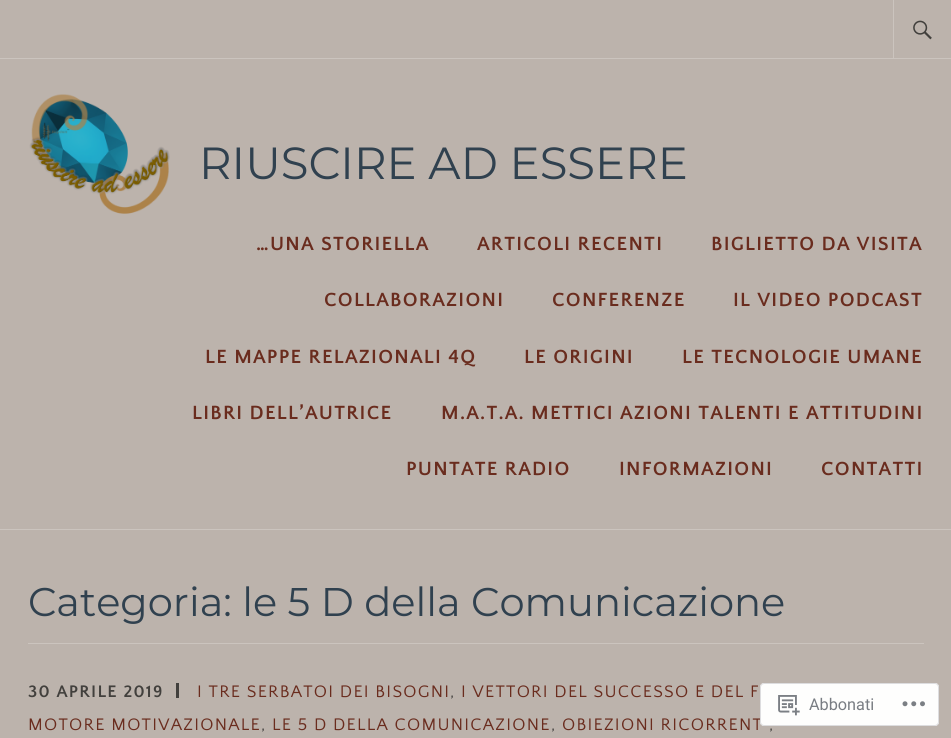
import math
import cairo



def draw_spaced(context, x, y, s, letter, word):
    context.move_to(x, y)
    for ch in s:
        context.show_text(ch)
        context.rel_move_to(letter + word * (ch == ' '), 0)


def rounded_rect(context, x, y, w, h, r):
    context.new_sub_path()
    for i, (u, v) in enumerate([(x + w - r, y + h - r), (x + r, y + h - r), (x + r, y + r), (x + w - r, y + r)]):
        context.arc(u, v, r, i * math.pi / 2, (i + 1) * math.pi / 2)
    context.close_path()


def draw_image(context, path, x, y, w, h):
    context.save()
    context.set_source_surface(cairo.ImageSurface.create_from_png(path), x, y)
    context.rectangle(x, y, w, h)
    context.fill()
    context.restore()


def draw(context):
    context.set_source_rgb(188 / 255, 179 / 255, 172 / 255)
    context.paint()
    context.set_source_rgb(203 / 255, 196 / 255, 190 / 255)
    context.rectangle(0, 529, 951, 1)
    context.fill()
    context.rectangle(0, 58, 951, 1)
    context.fill()
    context.rectangle(893, 0, 1, 58)
    context.fill()
    draw_image(context, "images/1.png", 913, 20, 19, 20)
    draw_image(context, "images/2.png", 29, 94, 141, 120)
    context.rectangle(28, 643, 896, 1)
    context.fill()
    context.set_source_rgb(66 / 255, 64 / 255, 61 / 255)
    context.rectangle(176, 683, 3, 15)
    context.fill()
    context.select_font_face("Montserrat Thin")
    context.set_font_size(45)
    context.set_source_rgb(48 / 255, 65 / 255, 79 / 255)
    context.move_to(199, 179)
    context.show_text("RIUSCIRE AD ESSERE")
    context.select_font_face("Quattrocento Sans", cairo.FontSlant.NORMAL, cairo.FontWeight.BOLD)
    context.set_font_size(20)
    context.set_source_rgb(106 / 255, 44 / 255, 30 / 255)
    draw_spaced(context, 256, 250, "…UNA STORIELLA", 1.25, 0)
    draw_spaced(context, 477, 250, "ARTICOLI RECENTI", 1.25, 0)
    draw_spaced(context, 711, 250, "BIGLIETTO DA VISITA", 1.25, 0)
    draw_spaced(context, 324, 306, "COLLABORAZIONI", 1.25, 0)
    draw_spaced(context, 552, 306, "CONFERENZE", 1.25, 0)
    draw_spaced(context, 733, 306, "IL VIDEO PODCAST", 1.25, 0)
    draw_spaced(context, 205, 363, "LE MAPPE RELAZIONALI 4Q", 1.25, 0)
    draw_spaced(context, 524, 363, "LE ORIGINI", 1.25, 0)
    draw_spaced(context, 682, 363, "LE TECNOLOGIE UMANE", 1.25, 0)
    draw_spaced(context, 192, 419, "LIBRI DELL’AUTRICE", 1.25, 0)
    draw_spaced(context, 441, 419, "M.A.T.A. METTICI AZIONI TALENTI E ATTITUDINI", 1.25, 0)
    draw_spaced(context, 406, 475, "PUNTATE RADIO", 1.25, 0)
    draw_spaced(context, 619, 475, "INFORMAZIONI", 1.25, 0)
    draw_spaced(context, 821, 475, "CONTATTI", 1.25, 0)
    context.select_font_face("Montserrat Thin")
    context.set_font_size(40)
    context.set_source_rgb(48 / 255, 65 / 255, 79 / 255)
    context.move_to(28, 616)
    context.show_text("Categoria: le 5 D della Comunicazione")
    context.select_font_face("Quattrocento Sans", cairo.FontSlant.NORMAL, cairo.FontWeight.BOLD)
    context.set_font_size(17.5)
    context.set_source_rgb(66 / 255, 64 / 255, 61 / 255)
    draw_spaced(context, 28, 697, "30 APRILE 2019", 1.25, 0)
    context.select_font_face("Quattrocento Sans")
    context.set_source_rgb(106 / 255, 44 / 255, 30 / 255)
    draw_spaced(context, 197, 697, "I TRE SERBATOI DEI BISOGNI", 1.25, 0)
    context.set_source_rgb(66 / 255, 64 / 255, 61 / 255)
    draw_spaced(context, 450, 697, ",", 1.25, 0)
    context.set_source_rgb(106 / 255, 44 / 255, 30 / 255)
    draw_spaced(context, 461, 697, "I VETTORI DEL SUCCESSO E DEL F", 1.25, 0)
    draw_spaced(context, 28, 730, "MOTORE MOTIVAZIONALE", 1.25, 0)
    context.set_source_rgb(66 / 255, 64 / 255, 61 / 255)
    draw_spaced(context, 261, 730, ",", 1.25, 0)
    context.set_source_rgb(106 / 255, 44 / 255, 30 / 255)
    draw_spaced(context, 272, 730, "LE 5 D DELLA COMUNICAZIONE", 1.25, 0)
    context.set_source_rgb(66 / 255, 64 / 255, 61 / 255)
    draw_spaced(context, 551, 730, ",", 1.25, 0)
    context.set_source_rgb(106 / 255, 44 / 255, 30 / 255)
    draw_spaced(context, 562, 730, "OBIEZIONI RICORRENT", 1.25, 0)
    context.set_source_rgb(66 / 255, 64 / 255, 61 / 255)
    draw_spaced(context, 769, 730, ",", 1.25, 0)
    context.set_source_rgba(1, 1, 1, 0.98)
    rounded_rect(context, 760, 683, 179, 43, 4)
    context.fill()
    rounded_rect(context, 760.5, 683.5, 178, 42, 3.5)
    context.set_source_rgba(220 / 255, 220 / 255, 222 / 255, 0.98)
    context.set_line_width(1)
    context.stroke()
    draw_image(context, "images/3.png", 778, 695, 22, 21)
    context.select_font_face("Roboto")
    context.set_font_size(16.25)
    context.set_source_rgb(121 / 255, 125 / 255, 131 / 255)
    context.move_to(809, 710)
    context.show_text("Abbonati")
    draw_image(context, "images/4.png", 902, 701, 23, 6)


surface = cairo.ImageSurface(cairo.Format.RGB24, 951, 738)
context = cairo.Context(surface)
options = cairo.FontOptions()
options.set_hint_metrics(cairo.HintMetrics.OFF)
options.set_hint_style(cairo.HintStyle.NONE)
context.set_font_options(options)
context.set_miter_limit(4)
draw(context)
surface.write_to_png("out.png")
